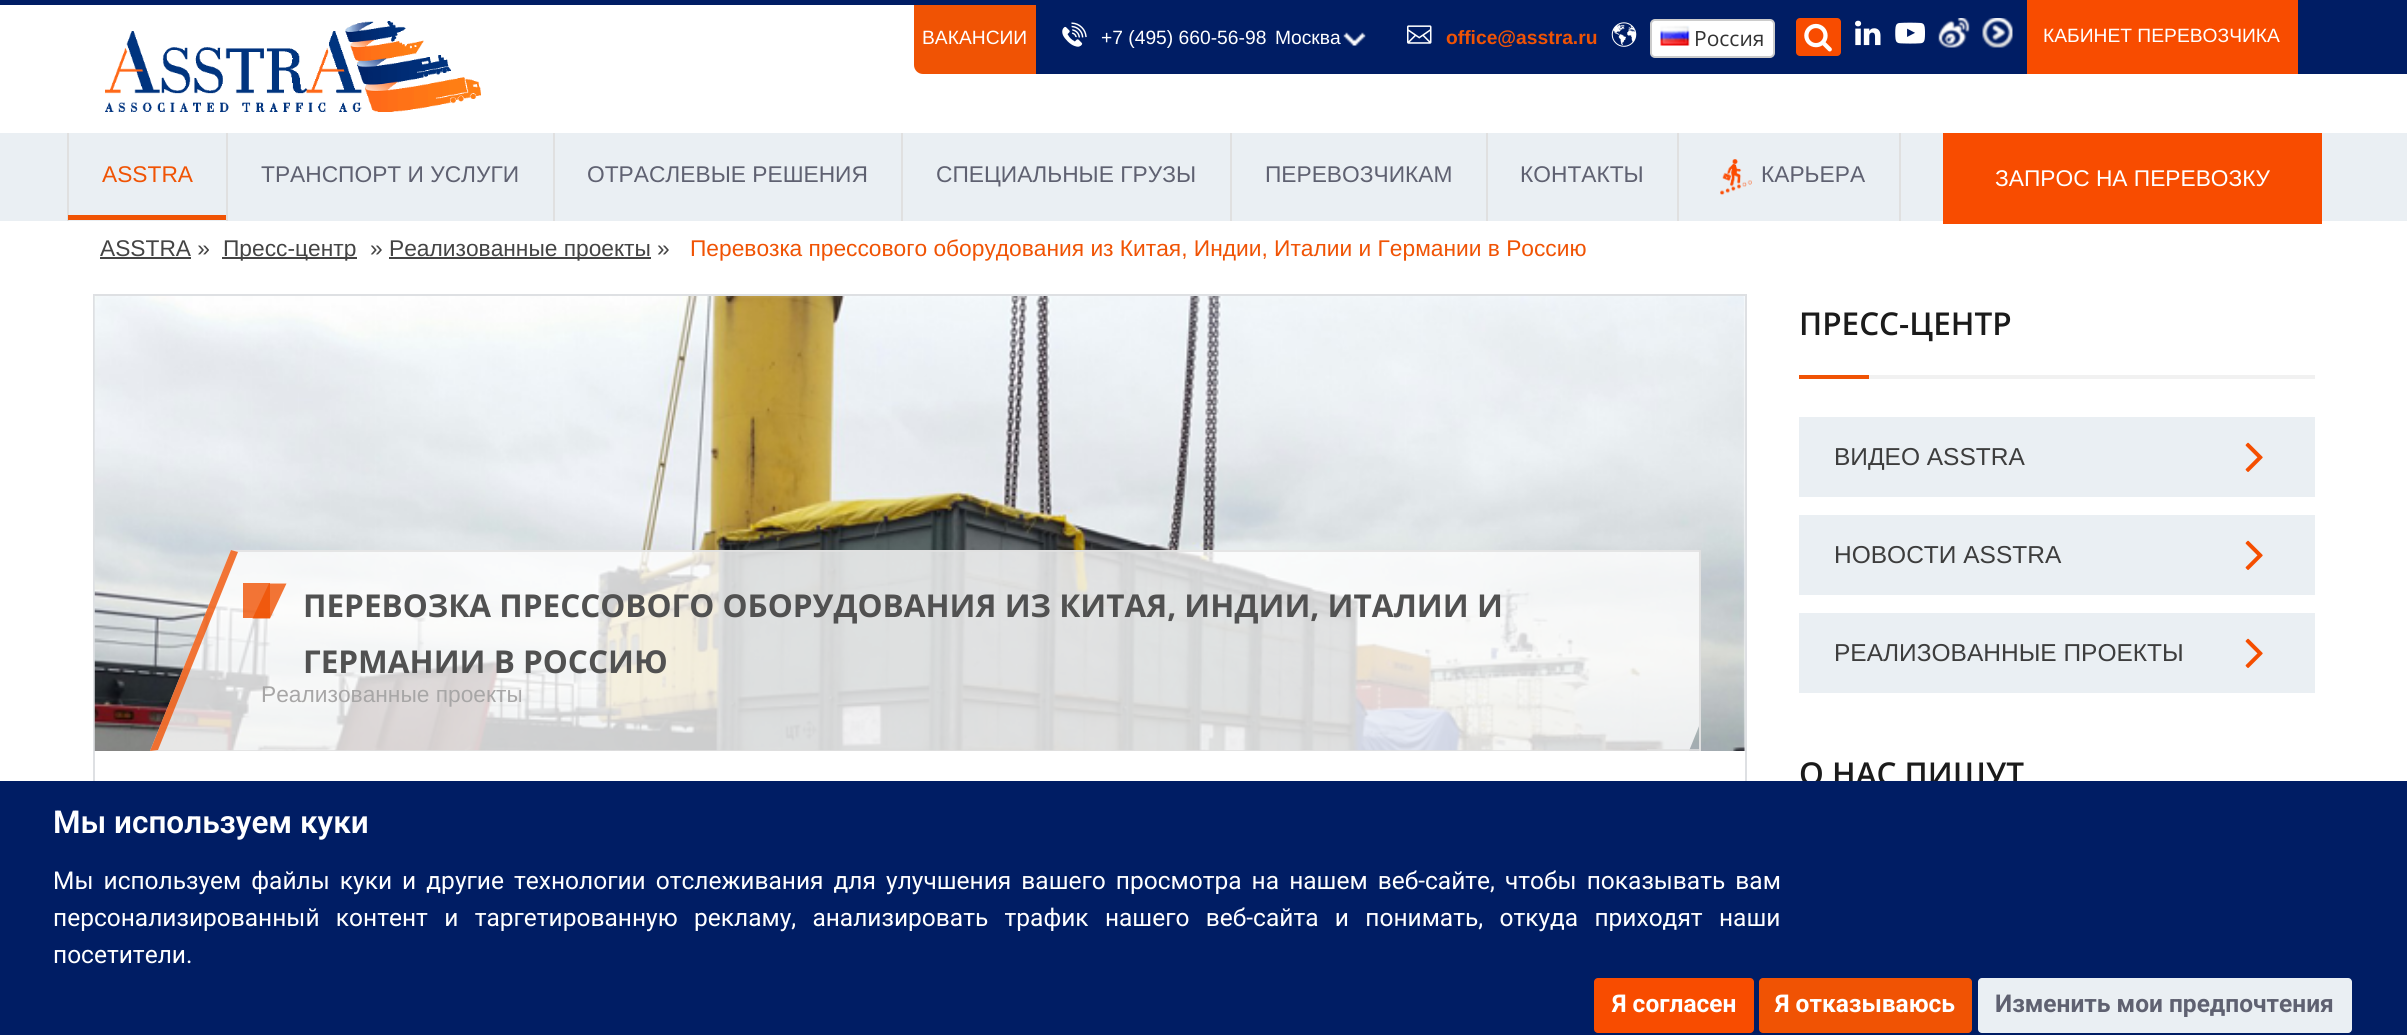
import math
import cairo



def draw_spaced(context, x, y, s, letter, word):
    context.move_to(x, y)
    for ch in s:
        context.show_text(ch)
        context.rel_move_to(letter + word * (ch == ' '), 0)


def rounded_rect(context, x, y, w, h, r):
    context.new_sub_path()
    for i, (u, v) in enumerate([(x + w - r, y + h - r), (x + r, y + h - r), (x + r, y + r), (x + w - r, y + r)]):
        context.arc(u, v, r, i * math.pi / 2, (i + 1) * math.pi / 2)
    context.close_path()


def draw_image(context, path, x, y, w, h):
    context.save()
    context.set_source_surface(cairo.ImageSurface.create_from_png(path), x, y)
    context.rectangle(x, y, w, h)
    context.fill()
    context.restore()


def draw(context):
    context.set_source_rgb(1, 1, 1)
    context.paint()
    draw_image(context, "images/1.png", 105, 21, 376, 91)
    context.set_source_rgb(0, 29 / 255, 100 / 255)
    context.rectangle(0, 0, 2407, 5)
    context.fill()
    context.rectangle(1036, 5, 1371, 69)
    context.fill()
    context.set_source_rgb(240 / 255, 83 / 255, 4 / 255)
    context.new_path()
    context.move_to(914, 5)
    context.line_to(1036, 5)
    context.line_to(1036, 74)
    context.line_to(923, 74)
    context.curve_to(918, 74, 914, 70, 914, 65)
    context.close_path()
    context.fill()
    draw_image(context, "images/2.png", 1062, 22, 25, 25)
    draw_image(context, "images/3.png", 1343, 32, 23, 14)
    draw_image(context, "images/4.png", 1407, 25, 25, 19)
    draw_image(context, "images/5.png", 1611, 22, 26, 25)
    context.set_source_rgb(1, 1, 1)
    rounded_rect(context, 1651, 20, 123, 37, 4)
    context.fill_preserve()
    context.set_source_rgb(204 / 255, 204 / 255, 204 / 255)
    context.stroke()
    draw_image(context, "images/6.png", 1660, 25, 30, 21)
    context.set_source_rgb(248 / 255, 76 / 255, 0)
    rounded_rect(context, 1796, 18, 45, 38, 4)
    context.fill()
    draw_image(context, "images/7.png", 1804, 23, 28, 29)
    draw_image(context, "images/8.png", 1855, 20, 26, 26)
    draw_image(context, "images/9.png", 1895, 22, 30, 22)
    draw_image(context, "images/10.png", 1938, 18, 32, 30)
    draw_image(context, "images/11.png", 1982, 18, 31, 30)
    context.rectangle(2027, 0, 271, 74)
    context.fill()
    context.set_source_rgb(234 / 255, 239 / 255, 243 / 255)
    context.rectangle(0, 133, 2407, 88)
    context.fill()
    context.set_source_rgb(224 / 255, 224 / 255, 224 / 255)
    context.rectangle(226, 133, 2, 88)
    context.fill()
    context.rectangle(67, 133, 2, 88)
    context.fill()
    context.set_source_rgb(240 / 255, 83 / 255, 4 / 255)
    context.rectangle(68, 215, 158, 5)
    context.fill()
    context.set_source_rgb(224 / 255, 224 / 255, 224 / 255)
    context.rectangle(553, 133, 2, 88)
    context.fill()
    context.rectangle(901, 133, 2, 88)
    context.fill()
    context.rectangle(1230, 133, 2, 88)
    context.fill()
    context.rectangle(1486, 133, 2, 88)
    context.fill()
    context.rectangle(1677, 133, 2, 88)
    context.fill()
    context.rectangle(1899, 133, 2, 88)
    context.fill()
    draw_image(context, "images/12.png", 1720, 159, 32, 36)
    context.set_source_rgb(248 / 255, 76 / 255, 0)
    context.rectangle(1943, 133, 379, 91)
    context.fill()
    context.set_source_rgb(68 / 255, 68 / 255, 68 / 255)
    context.rectangle(100, 257, 91, 2)
    context.fill()
    context.rectangle(222, 257, 135, 2)
    context.fill()
    context.rectangle(389, 257, 262, 2)
    context.fill()
    context.rectangle(94, 295, 1652, 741)
    context.set_source_rgb(222 / 255, 224 / 255, 227 / 255)
    context.stroke()
    draw_image(context, "images/13.png", 94, 296, 1651, 455)
    context.save()
    context.rectangle(138, 550, 1563, 201)
    context.clip()
    context.set_source_rgba(1, 1, 1, 0.8)
    context.new_path()
    context.move_to(231, 550)
    context.line_to(1770, 550)
    context.line_to(1689, 751)
    context.line_to(150, 751)
    context.close_path()
    context.fill()
    context.set_source_rgba(224 / 255, 224 / 255, 224 / 255, 0.8)
    context.new_path()
    context.move_to(231, 550)
    context.line_to(1770, 550)
    context.line_to(1769, 552)
    context.line_to(238, 552)
    context.close_path()
    context.fill()
    context.restore()
    context.set_source_rgba(224 / 255, 224 / 255, 224 / 255, 0.8)
    context.new_path()
    context.move_to(1689, 751)
    context.line_to(150, 751)
    context.line_to(158, 750)
    context.line_to(1689, 750)
    context.close_path()
    context.fill()
    context.set_source_rgba(240 / 255, 83 / 255, 4 / 255, 0.8)
    context.new_path()
    context.move_to(150, 751)
    context.line_to(231, 550)
    context.line_to(238, 552)
    context.line_to(158, 750)
    context.close_path()
    context.fill()
    context.rectangle(243, 583, 27, 35)
    context.fill()
    context.new_path()
    context.move_to(269, 583.5)
    context.line_to(286.5, 583.5)
    context.line_to(270, 618.5)
    context.line_to(252.5, 618.5)
    context.close_path()
    context.fill()
    context.set_source_rgba(224 / 255, 224 / 255, 224 / 255, 0.8)
    context.rectangle(1647, 749, 52, 2)
    context.fill()
    context.set_source_rgb(224 / 255, 224 / 255, 224 / 255)
    context.rectangle(1699, 550, 2, 201)
    context.fill()
    context.set_source_rgb(240 / 255, 83 / 255, 4 / 255)
    context.rectangle(1799, 375, 70, 4)
    context.fill()
    context.set_source_rgb(241 / 255, 241 / 255, 241 / 255)
    context.rectangle(1869, 375, 446, 4)
    context.fill()
    context.set_source_rgb(234 / 255, 239 / 255, 243 / 255)
    context.rectangle(1799, 417, 516, 80)
    context.fill()
    draw_image(context, "images/14.png", 2245, 442, 18, 30)
    context.rectangle(1799, 515, 516, 80)
    context.fill()
    draw_image(context, "images/14.png", 2245, 540, 18, 30)
    context.rectangle(1799, 613, 516, 80)
    context.fill()
    draw_image(context, "images/14.png", 2245, 638, 18, 30)
    context.select_font_face("Liberation Sans")
    context.set_font_size(19.25)
    context.set_source_rgb(1, 1, 1)
    context.move_to(922, 44)
    context.show_text("ВАКАНСИИ")
    context.move_to(1101, 44)
    context.show_text("+7 (495) 660-56-98")
    context.move_to(1275, 44)
    context.show_text("Москва")
    context.select_font_face("Liberation Sans", cairo.FontSlant.NORMAL, cairo.FontWeight.BOLD)
    context.set_source_rgb(240 / 255, 83 / 255, 4 / 255)
    context.move_to(1446, 44)
    context.show_text("office@asstra.ru")
    context.select_font_face("Open Sans")
    context.set_font_size(21)
    context.set_source_rgb(51 / 255, 51 / 255, 51 / 255)
    context.move_to(1694, 46)
    context.show_text("Россия")
    context.select_font_face("Liberation Sans")
    context.set_font_size(19.25)
    context.set_source_rgb(1, 1, 1)
    context.move_to(2043, 42)
    context.show_text("КАБИНЕТ ПЕРЕВОЗЧИКА")
    context.set_font_size(22.75)
    context.set_source_rgb(240 / 255, 83 / 255, 4 / 255)
    context.move_to(102, 182)
    context.show_text("ASSTRA")
    context.set_source_rgb(95 / 255, 97 / 255, 113 / 255)
    context.move_to(261, 182)
    context.show_text("ТРАНСПОРТ И УСЛУГИ")
    context.move_to(587, 182)
    context.show_text("ОТРАСЛЕВЫЕ РЕШЕНИЯ")
    context.move_to(936, 182)
    context.show_text("СПЕЦИАЛЬНЫЕ ГРУЗЫ")
    context.move_to(1265, 182)
    context.show_text("ПЕРЕВОЗЧИКАМ")
    context.move_to(1520, 182)
    context.show_text("КОНТАКТЫ")
    context.move_to(1761, 182)
    context.show_text("КАРЬЕРА")
    context.set_source_rgb(1, 1, 1)
    context.move_to(1995, 186)
    context.show_text("ЗАПРОС НА ПЕРЕВОЗКУ")
    context.set_source_rgb(68 / 255, 68 / 255, 68 / 255)
    context.move_to(100, 256)
    context.show_text("ASSTRA »")
    context.move_to(223, 256)
    context.show_text("Пресс-центр")
    context.move_to(370, 256)
    context.show_text("»")
    context.move_to(389, 256)
    context.show_text("Реализованные проекты »")
    context.set_source_rgb(240 / 255, 83 / 255, 4 / 255)
    context.move_to(690, 256)
    context.show_text("Перевозка прессового оборудования из Китая, Индии, Италии и Германии в Россию")
    context.select_font_face("Open Sans", cairo.FontSlant.NORMAL, cairo.FontWeight.BOLD)
    context.set_font_size(31.5)
    context.set_source_rgb(81 / 255, 81 / 255, 81 / 255)
    context.move_to(303, 617)
    context.show_text("ПЕРЕВОЗКА ПРЕССОВОГО ОБОРУДОВАНИЯ ИЗ КИТАЯ, ИНДИИ, ИТАЛИИ И")
    context.move_to(303, 673)
    context.show_text("ГЕРМАНИИ В РОССИЮ")
    context.select_font_face("Liberation Sans")
    context.set_font_size(22.75)
    context.set_source_rgb(167 / 255, 166 / 255, 166 / 255)
    context.move_to(261, 702)
    context.show_text("Реализованные проекты")
    context.select_font_face("Open Sans SemiBold")
    context.set_font_size(31.5)
    context.set_source_rgb(27 / 255, 27 / 255, 27 / 255)
    context.move_to(1799, 335)
    context.show_text("ПРЕСС-ЦЕНТР")
    context.select_font_face("Liberation Sans")
    context.set_font_size(24.5)
    context.set_source_rgb(61 / 255, 61 / 255, 61 / 255)
    context.move_to(1834, 465)
    context.show_text("ВИДЕО ASSTRA")
    context.move_to(1834, 563)
    context.show_text("НОВОСТИ ASSTRA")
    context.move_to(1834, 661)
    context.show_text("РЕАЛИЗОВАННЫЕ ПРОЕКТЫ")
    context.select_font_face("Open Sans SemiBold")
    context.set_font_size(31.5)
    context.set_source_rgb(27 / 255, 27 / 255, 27 / 255)
    context.move_to(1799, 785)
    context.show_text("О НАС ПИШУТ")
    context.set_source_rgb(0, 29 / 255, 100 / 255)
    context.rectangle(0, 781, 2407, 254)
    context.fill()
    context.select_font_face("Roboto SemiBold")
    context.set_source_rgb(1, 1, 1)
    context.move_to(53, 833)
    context.show_text("Мы используем куки")
    context.select_font_face("Roboto")
    context.set_font_size(24.5)
    draw_spaced(context, 53, 889, "Мы используем файлы куки и другие технологии отслеживания для улучшения вашего просмотра на нашем веб-сайте, чтобы показывать вам", 0, 4)
    draw_spaced(context, 53, 926, "персонализированный контент и таргетированную рекламу, анализировать трафик нашего веб-сайта и понимать, откуда приходят наши", 0, 10.25)
    context.move_to(53, 963)
    context.show_text("посетители.")
    context.set_source_rgb(248 / 255, 76 / 255, 0)
    rounded_rect(context, 1594, 978, 160, 55, 4)
    context.fill()
    context.select_font_face("Roboto", cairo.FontSlant.NORMAL, cairo.FontWeight.BOLD)
    context.set_source_rgb(1, 1, 1)
    context.move_to(1612, 1012)
    context.show_text("Я согласен")
    context.set_source_rgb(240 / 255, 83 / 255, 4 / 255)
    rounded_rect(context, 1759, 978, 213, 55, 4)
    context.fill()
    context.set_source_rgb(1, 1, 1)
    context.move_to(1775, 1012)
    context.show_text("Я отказываюсь")
    context.set_source_rgb(234 / 255, 239 / 255, 243 / 255)
    rounded_rect(context, 1978, 978, 374, 55, 4)
    context.fill()
    context.set_source_rgb(95 / 255, 97 / 255, 113 / 255)
    context.move_to(1995, 1012)
    context.show_text("Изменить мои предпочтения")


surface = cairo.ImageSurface(cairo.Format.RGB24, 2407, 1035)
context = cairo.Context(surface)
options = cairo.FontOptions()
options.set_hint_metrics(cairo.HintMetrics.OFF)
options.set_hint_style(cairo.HintStyle.NONE)
context.set_font_options(options)
context.set_miter_limit(4)
draw(context)
surface.write_to_png("out.png")
